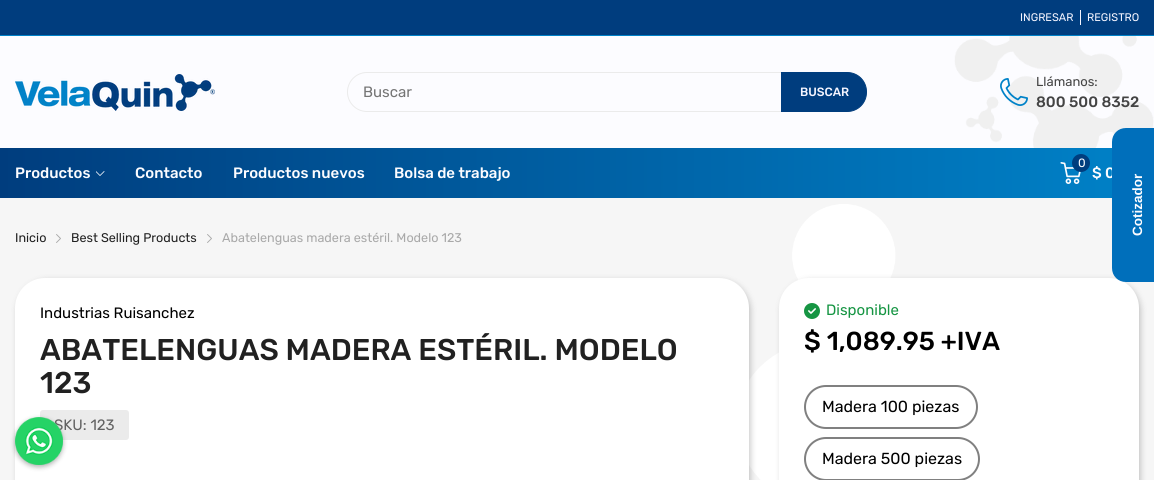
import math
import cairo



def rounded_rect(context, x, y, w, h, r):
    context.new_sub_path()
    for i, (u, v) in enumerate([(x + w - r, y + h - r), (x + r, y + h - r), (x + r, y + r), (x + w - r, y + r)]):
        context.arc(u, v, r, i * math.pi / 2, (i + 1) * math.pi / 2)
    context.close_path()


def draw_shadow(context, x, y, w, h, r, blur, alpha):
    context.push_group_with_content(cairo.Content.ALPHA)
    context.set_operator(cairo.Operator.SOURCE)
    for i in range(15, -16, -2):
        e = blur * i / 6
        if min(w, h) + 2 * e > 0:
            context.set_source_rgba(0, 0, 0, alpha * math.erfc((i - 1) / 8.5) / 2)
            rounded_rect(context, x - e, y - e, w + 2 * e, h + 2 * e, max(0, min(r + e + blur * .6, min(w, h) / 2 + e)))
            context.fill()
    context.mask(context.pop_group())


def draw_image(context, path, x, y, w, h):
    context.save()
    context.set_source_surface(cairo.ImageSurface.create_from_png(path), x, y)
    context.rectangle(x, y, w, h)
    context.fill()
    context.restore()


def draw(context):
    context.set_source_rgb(246 / 255, 246 / 255, 246 / 255)
    context.paint()
    draw_image(context, "images/1.png", 749, 204, 147, 276)
    context.set_source_rgb(0, 61 / 255, 126 / 255)
    context.rectangle(0, 0, 1154, 35)
    context.fill()
    context.set_source_rgb(0, 130 / 255, 200 / 255)
    context.rectangle(0, 35, 1154, 1)
    context.fill()
    context.set_source_rgb(245 / 255, 245 / 255, 1)
    context.rectangle(1080, 10, 1, 15)
    context.fill()
    context.set_source_rgb(252 / 255, 252 / 255, 1)
    context.rectangle(0, 36, 1154, 112)
    context.fill()
    draw_image(context, "images/2.png", 954, 36, 200, 112)
    draw_image(context, "images/3.png", 15, 74, 200, 37)
    rounded_rect(context, 347.5, 72.5, 519, 39, 19.5)
    context.set_source_rgb(235 / 255, 235 / 255, 235 / 255)
    context.set_line_width(1)
    context.stroke()
    context.set_source_rgb(0, 61 / 255, 126 / 255)
    context.new_path()
    context.move_to(781.5, 72.5)
    context.line_to(847, 72.5)
    context.curve_to(858, 72.5, 866.5, 81, 866.5, 92)
    context.curve_to(866.5, 103, 858, 111.5, 847, 111.5)
    context.line_to(781.5, 111.5)
    context.close_path()
    context.fill_preserve()
    context.stroke()
    draw_image(context, "images/4.png", 1000, 78, 28, 28)
    gradient = cairo.LinearGradient(0, 173, 1154, 173)
    gradient.add_color_stop_rgba(0, 0, 61 / 255, 126 / 255, 1)
    gradient.add_color_stop_rgba(1, 0, 130 / 255, 200 / 255, 1)
    context.set_source(gradient)
    context.rectangle(0, 148, 1112, 50)
    context.fill()
    draw_image(context, "images/5.png", 96, 171, 9, 5)
    draw_image(context, "images/6.png", 1060, 162, 21, 22)
    context.set_source_rgb(0, 61 / 255, 126 / 255)
    context.arc(1081, 163, 9, 0, 2 * math.pi)
    context.fill()
    draw_image(context, "images/7.png", 56, 234, 5, 9)
    draw_image(context, "images/7.png", 207, 234, 5, 9)
    context.set_source_rgb(0, 0, 0)
    draw_shadow(context, 17, 280, 734, 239, 30, 3, 0.2)
    context.set_source_rgb(1, 1, 1)
    rounded_rect(context, 15, 278, 734, 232, 30)
    context.fill()
    context.set_source_rgb(235 / 255, 235 / 255, 235 / 255)
    rounded_rect(context, 40, 410, 89, 30, 3)
    context.fill()
    context.set_source_rgb(0, 0, 0)
    draw_shadow(context, 781, 280, 360, 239, 30, 3, 0.2)
    context.set_source_rgb(1, 1, 1)
    rounded_rect(context, 779, 278, 360, 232, 30)
    context.fill()
    context.set_source_rgb(22 / 255, 149 / 255, 67 / 255)
    context.arc(812, 311, 8, 0, 2 * math.pi)
    context.fill()
    draw_image(context, "images/8.png", 808, 308, 8, 6)
    rounded_rect(context, 805, 386, 172, 42, 21)
    context.set_source_rgb(128 / 255, 128 / 255, 128 / 255)
    context.set_line_width(2)
    context.stroke()
    rounded_rect(context, 805, 438, 174, 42, 21)
    context.stroke()
    context.set_source_rgb(0, 0, 0)
    draw_shadow(context, 15, 419, 48, 48, 24, 2.5, 0.3)
    context.select_font_face("Rubik")
    context.set_font_size(11)
    context.set_source_rgb(245 / 255, 245 / 255, 1)
    context.move_to(1020, 21)
    context.show_text("INGRESAR")
    context.move_to(1087, 21)
    context.show_text("REGISTRO")
    context.set_font_size(15)
    context.set_source_rgb(117 / 255, 117 / 255, 117 / 255)
    context.move_to(363, 97)
    context.show_text("Buscar")
    context.select_font_face("Rubik Medium")
    context.set_font_size(12)
    context.set_source_rgb(245 / 255, 245 / 255, 1)
    context.move_to(800, 96)
    context.show_text("BUSCAR")
    context.select_font_face("Rubik")
    context.set_font_size(13)
    context.set_source_rgb(68 / 255, 68 / 255, 68 / 255)
    context.move_to(1036, 86)
    context.show_text("Llámanos:")
    context.select_font_face("Rubik Medium")
    context.set_font_size(15)
    context.move_to(1036, 107)
    context.show_text("800 500 8352")
    context.set_source_rgb(252 / 255, 252 / 255, 1)
    context.move_to(15, 178)
    context.show_text("Productos")
    context.move_to(135, 178)
    context.show_text("Contacto")
    context.move_to(233, 178)
    context.show_text("Productos nuevos")
    context.move_to(394, 178)
    context.show_text("Bolsa de trabajo")
    context.select_font_face("Rubik")
    context.set_font_size(12)
    context.move_to(1078, 167)
    context.show_text("0")
    context.select_font_face("Rubik Medium")
    context.set_font_size(15)
    context.move_to(1092, 178)
    context.show_text("$ 0")
    context.set_source_rgb(0, 111 / 255, 187 / 255)
    context.new_path()
    context.move_to(1112, 268)
    context.line_to(1112, 142)
    context.curve_to(1112, 134, 1118, 128, 1126, 128)
    context.line_to(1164, 128)
    context.line_to(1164, 282)
    context.line_to(1126, 282)
    context.curve_to(1118, 282, 1112, 276, 1112, 268)
    context.close_path()
    context.fill()
    context.select_font_face("Liberation Sans", cairo.FontSlant.NORMAL, cairo.FontWeight.BOLD)
    context.set_font_size(13.5)
    context.set_source_rgb(252 / 255, 252 / 255, 1)
    context.save()
    context.translate(1142, 236)
    context.rotate(-90 * math.pi / 180)
    context.move_to(0, 0)
    context.show_text("Cotizador")
    context.restore()
    context.select_font_face("Rubik")
    context.set_font_size(12.6)
    context.set_source_rgb(33 / 255, 33 / 255, 33 / 255)
    context.move_to(15, 242)
    context.show_text("Inicio")
    context.move_to(71, 242)
    context.show_text("Best Selling Products")
    context.set_source_rgb(169 / 255, 169 / 255, 169 / 255)
    context.move_to(222, 242)
    context.show_text("Abatelenguas madera estéril. Modelo 123")
    context.set_font_size(15)
    context.set_source_rgb(0, 0, 0)
    context.move_to(40, 318)
    context.show_text("Industrias Ruisanchez")
    context.select_font_face("Rubik Medium")
    context.set_font_size(30)
    context.set_source_rgb(33 / 255, 33 / 255, 33 / 255)
    context.move_to(40, 360)
    context.show_text("ABATELENGUAS MADERA ESTÉRIL. MODELO")
    context.move_to(40, 393)
    context.show_text("123")
    context.select_font_face("Rubik")
    context.set_font_size(15)
    context.set_source_rgb(98 / 255, 98 / 255, 98 / 255)
    context.move_to(54, 430)
    context.show_text("SKU: 123")
    context.set_source_rgb(22 / 255, 149 / 255, 67 / 255)
    context.move_to(826, 315)
    context.show_text("Disponible")
    context.select_font_face("Rubik Medium")
    context.set_font_size(26)
    context.set_source_rgb(0, 0, 0)
    context.move_to(804, 350)
    context.show_text("$ 1,089.95 +IVA")
    context.select_font_face("Rubik")
    context.set_font_size(16)
    context.move_to(822, 412)
    context.show_text("Madera 100 piezas")
    context.move_to(822, 464)
    context.show_text("Madera 500 piezas")
    draw_image(context, "images/9.png", 15, 417, 48, 48)


surface = cairo.ImageSurface(cairo.Format.RGB24, 1154, 480)
context = cairo.Context(surface)
options = cairo.FontOptions()
options.set_hint_metrics(cairo.HintMetrics.OFF)
options.set_hint_style(cairo.HintStyle.NONE)
context.set_font_options(options)
context.set_miter_limit(4)
draw(context)
surface.write_to_png("out.png")
